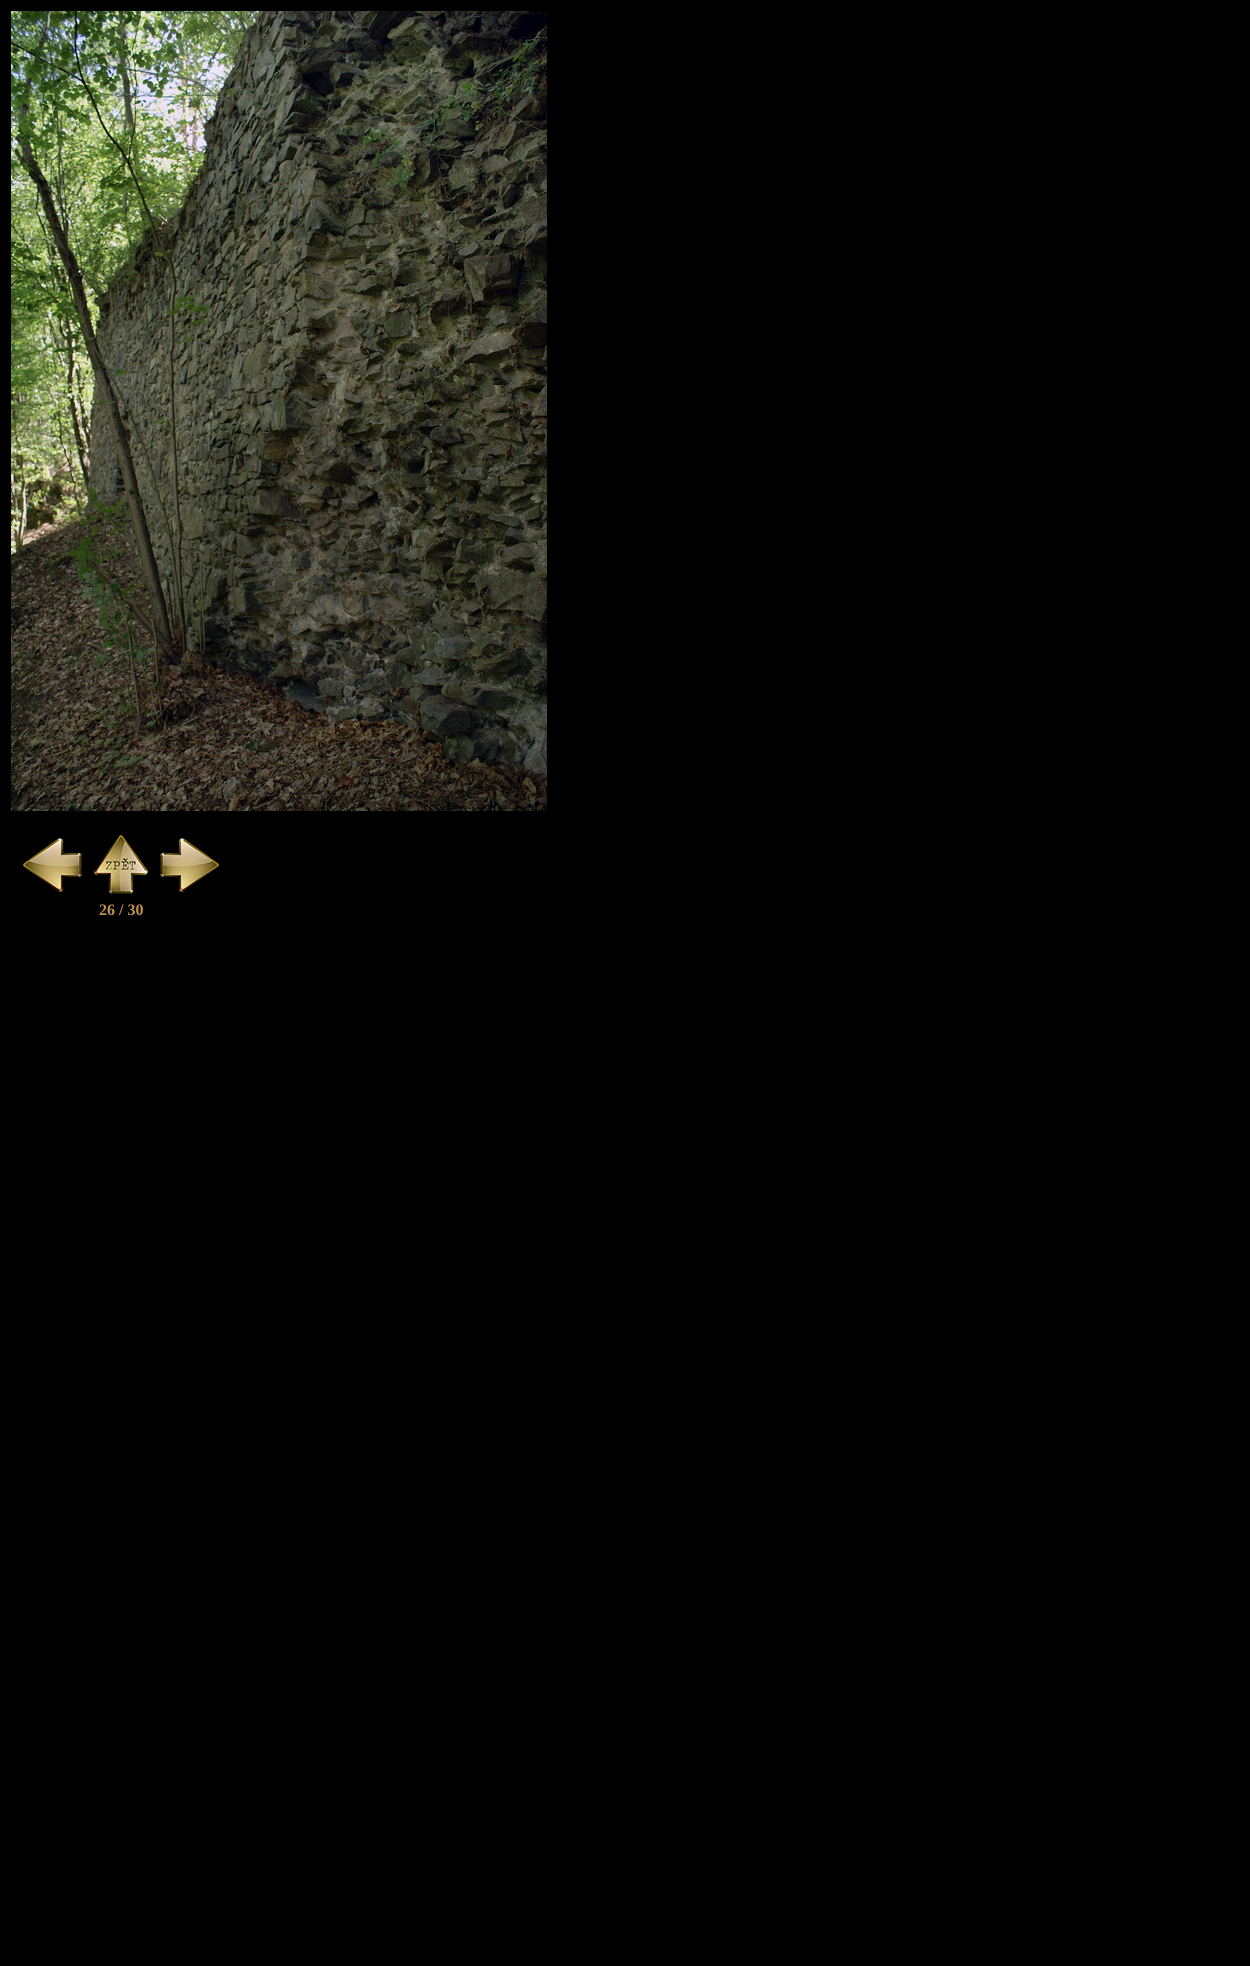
import math
import cairo



def draw_image(context, path, x, y, w, h):
    context.save()
    context.set_source_surface(cairo.ImageSurface.create_from_png(path), x, y)
    context.rectangle(x, y, w, h)
    context.fill()
    context.restore()


def draw(context):
    context.set_source_rgb(0, 0, 0)
    context.paint()
    draw_image(context, "images/1.png", 11, 11, 536, 800)
    draw_image(context, "images/2.png", 23, 838, 59, 54)
    draw_image(context, "images/3.png", 94, 835, 54, 59)
    draw_image(context, "images/4.png", 160, 838, 59, 54)
    context.select_font_face("Liberation Serif", cairo.FontSlant.NORMAL, cairo.FontWeight.BOLD)
    context.set_font_size(16)
    context.set_source_rgb(193 / 255, 143 / 255, 80 / 255)
    context.move_to(99, 915)
    context.show_text("26 / 30")


surface = cairo.ImageSurface(cairo.Format.RGB24, 1250, 1966)
context = cairo.Context(surface)
options = cairo.FontOptions()
options.set_hint_metrics(cairo.HintMetrics.OFF)
options.set_hint_style(cairo.HintStyle.NONE)
context.set_font_options(options)
context.set_miter_limit(4)
draw(context)
surface.write_to_png("out.png")
